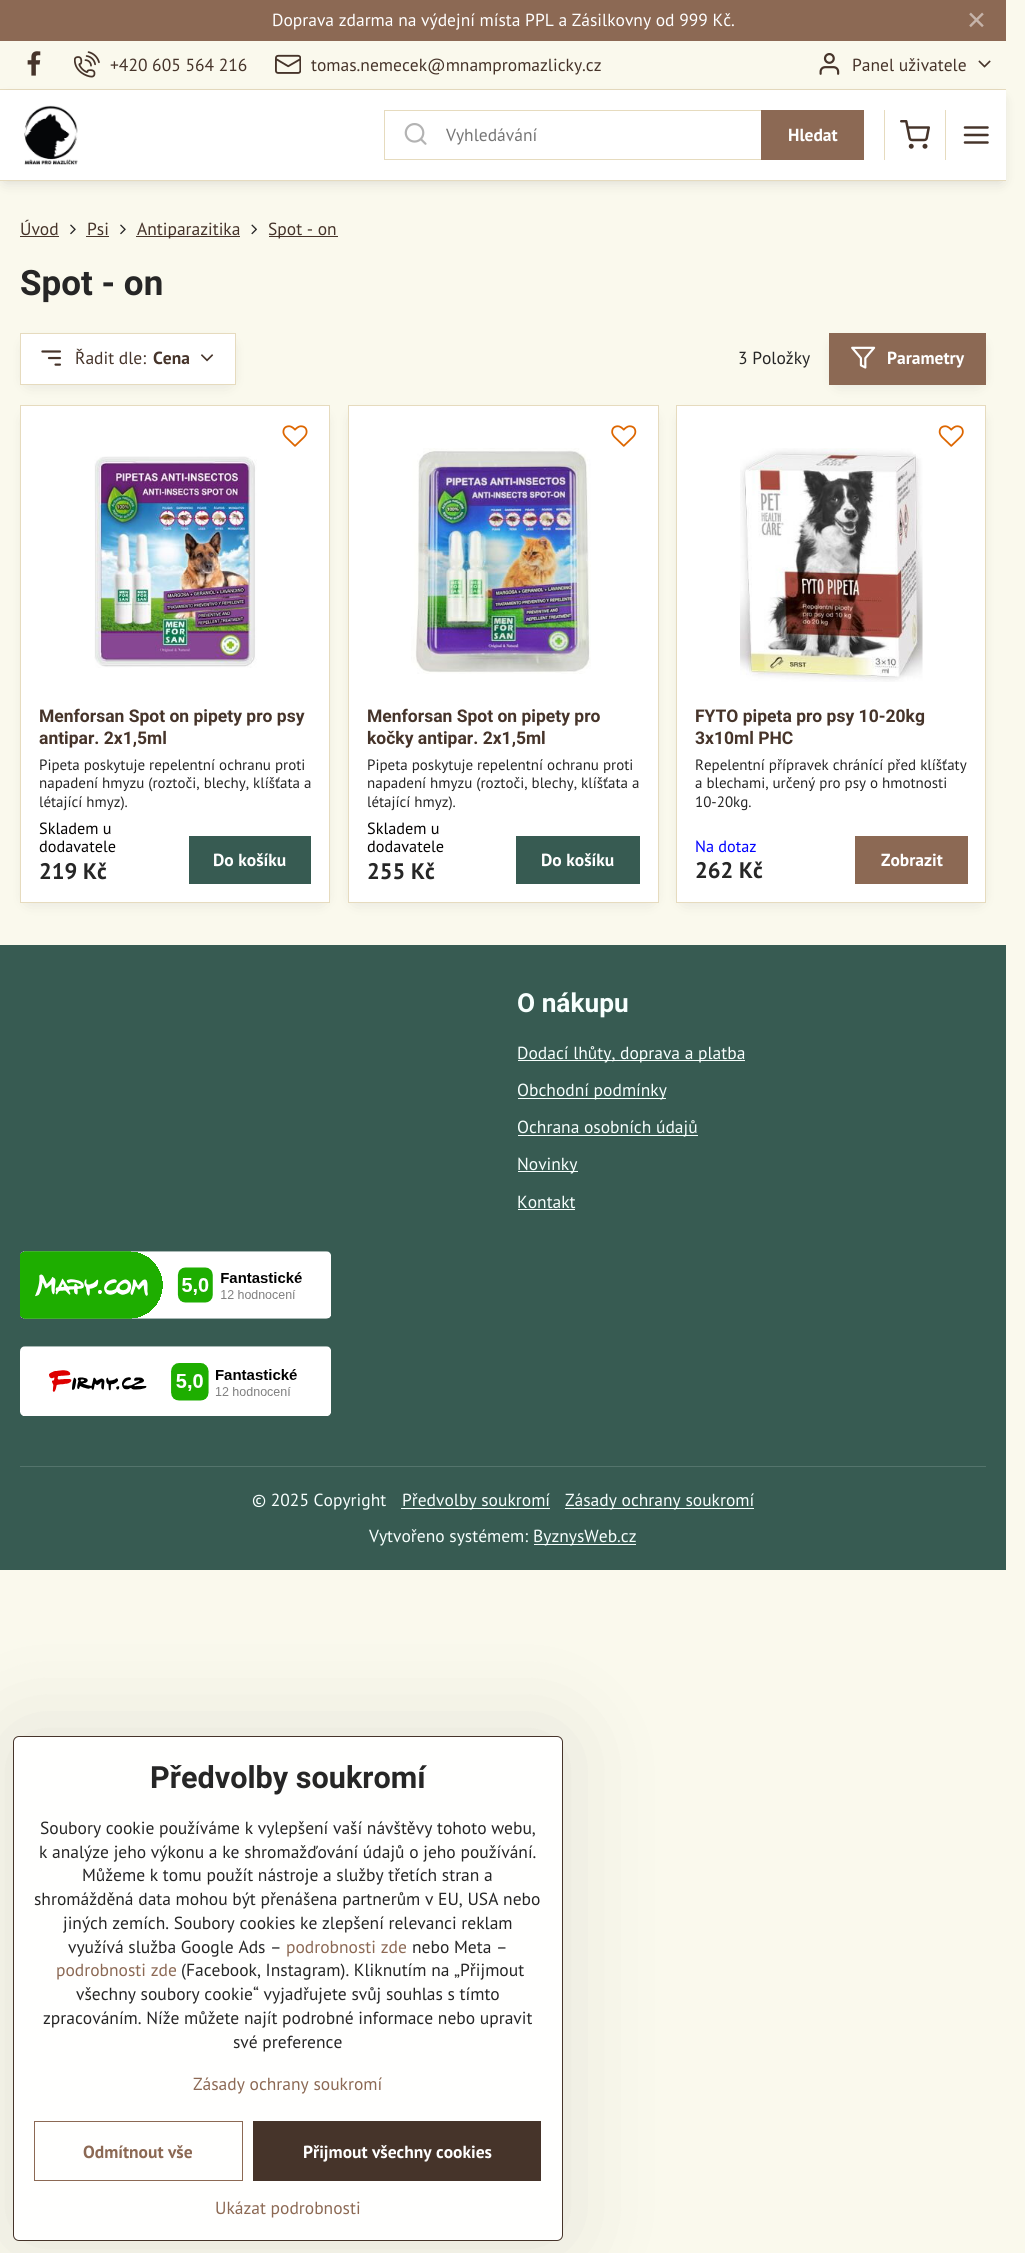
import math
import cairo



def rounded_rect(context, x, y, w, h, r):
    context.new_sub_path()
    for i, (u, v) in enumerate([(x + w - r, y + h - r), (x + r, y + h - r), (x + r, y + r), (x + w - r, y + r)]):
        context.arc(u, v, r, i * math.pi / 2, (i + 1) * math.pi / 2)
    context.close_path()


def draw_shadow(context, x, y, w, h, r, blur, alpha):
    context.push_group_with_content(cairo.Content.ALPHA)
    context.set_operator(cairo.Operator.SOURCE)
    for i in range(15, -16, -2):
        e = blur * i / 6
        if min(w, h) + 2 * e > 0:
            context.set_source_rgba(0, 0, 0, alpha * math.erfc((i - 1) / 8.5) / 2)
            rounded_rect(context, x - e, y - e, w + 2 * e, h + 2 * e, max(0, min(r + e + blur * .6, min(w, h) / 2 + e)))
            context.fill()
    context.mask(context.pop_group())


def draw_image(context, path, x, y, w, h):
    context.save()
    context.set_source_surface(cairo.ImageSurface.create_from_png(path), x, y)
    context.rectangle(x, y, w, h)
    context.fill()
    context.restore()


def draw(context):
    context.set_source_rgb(250 / 255, 249 / 255, 237 / 255)
    context.paint()
    context.set_source_rgb(140 / 255, 105 / 255, 84 / 255)
    context.rectangle(0, 0, 1006, 41)
    context.fill()
    context.set_source_rgb(230 / 255, 219 / 255, 190 / 255)
    context.rectangle(0, 89, 1006, 1)
    context.fill()
    draw_image(context, "images/1.png", 27, 51, 14, 25)
    draw_image(context, "images/2.png", 74, 51, 26, 27)
    draw_image(context, "images/3.png", 275, 54, 26, 20)
    draw_image(context, "images/4.png", 819, 53, 21, 22)
    draw_image(context, "images/5.png", 978, 60, 13, 8)
    context.set_source_rgb(0, 0, 20 / 255)
    draw_shadow(context, 5, 100, 996, 81, 0, 7.5, 0.15)
    context.set_source_rgb(1, 1, 1)
    context.rectangle(0, 90, 1006, 90)
    context.fill()
    context.set_source_rgb(230 / 255, 219 / 255, 190 / 255)
    context.rectangle(0, 180, 1006, 1)
    context.fill()
    draw_image(context, "images/6.png", 24, 105, 54, 60)
    context.rectangle(384.5, 110.5, 479, 49)
    context.set_line_width(1)
    context.stroke()
    draw_image(context, "images/7.png", 404, 123, 23, 22)
    context.set_source_rgb(140 / 255, 105 / 255, 84 / 255)
    context.rectangle(761, 110, 103, 50)
    context.fill()
    context.set_source_rgb(230 / 255, 219 / 255, 190 / 255)
    context.rectangle(884, 110, 1, 50)
    context.fill()
    draw_image(context, "images/8.png", 900, 120, 30, 29)
    context.rectangle(945, 110, 1, 50)
    context.fill()
    draw_image(context, "images/9.png", 963, 126, 26, 18)
    context.set_source_rgb(70 / 255, 52 / 255, 42 / 255)
    context.rectangle(20, 236, 39, 1)
    context.fill()
    draw_image(context, "images/10.png", 70, 224, 6, 11)
    context.rectangle(86, 236, 23, 1)
    context.fill()
    draw_image(context, "images/10.png", 120, 224, 6, 11)
    context.rectangle(136, 236, 104, 1)
    context.fill()
    draw_image(context, "images/11.png", 251, 224, 6, 11)
    context.rectangle(269, 236, 69, 1)
    context.fill()
    context.set_source_rgb(0, 0, 20 / 255)
    draw_shadow(context, 29, 346, 199, 35, 0, 9, 0.15)
    context.set_source_rgb(1, 1, 1)
    context.rectangle(20.5, 333.5, 215, 51)
    context.fill_preserve()
    context.set_source_rgb(230 / 255, 219 / 255, 190 / 255)
    context.stroke()
    draw_image(context, "images/12.png", 41, 350, 20, 16)
    draw_image(context, "images/13.png", 201, 354, 13, 8)
    context.set_source_rgb(0, 0, 20 / 255)
    draw_shadow(context, 838, 346, 140, 35, 0, 9, 0.15)
    context.set_source_rgb(140 / 255, 105 / 255, 84 / 255)
    context.rectangle(829, 333, 157, 52)
    context.fill()
    draw_image(context, "images/14.png", 851, 346, 25, 23)
    context.set_source_rgb(0, 0, 20 / 255)
    draw_shadow(context, 29, 419, 292, 480, 0, 9, 0.15)
    context.set_source_rgb(1, 1, 1)
    context.rectangle(20.5, 405.5, 309, 497)
    context.fill_preserve()
    context.set_source_rgb(230 / 255, 219 / 255, 190 / 255)
    context.stroke()
    draw_image(context, "images/15.png", 282, 425, 26, 22)
    draw_image(context, "images/16.png", 94, 456, 163, 212)
    context.set_source_rgb(55 / 255, 91 / 255, 82 / 255)
    context.rectangle(189, 836, 122, 48)
    context.fill()
    context.set_source_rgb(0, 0, 20 / 255)
    draw_shadow(context, 356, 419, 294, 480, 0, 9, 0.15)
    context.set_source_rgb(1, 1, 1)
    context.rectangle(348.5, 405.5, 310, 497)
    context.fill_preserve()
    context.set_source_rgb(230 / 255, 219 / 255, 190 / 255)
    context.stroke()
    draw_image(context, "images/17.png", 611, 425, 26, 22)
    draw_image(context, "images/18.png", 411, 448, 180, 226)
    context.set_source_rgb(55 / 255, 91 / 255, 82 / 255)
    context.rectangle(516, 836, 124, 48)
    context.fill()
    context.set_source_rgb(0, 0, 20 / 255)
    draw_shadow(context, 685, 419, 293, 480, 0, 9, 0.15)
    context.set_source_rgb(1, 1, 1)
    context.rectangle(676.5, 405.5, 309, 497)
    context.fill_preserve()
    context.set_source_rgb(230 / 255, 219 / 255, 190 / 255)
    context.stroke()
    draw_image(context, "images/19.png", 938, 425, 26, 22)
    draw_image(context, "images/20.png", 740, 448, 183, 234)
    context.set_source_rgb(140 / 255, 105 / 255, 84 / 255)
    context.rectangle(855, 836, 113, 48)
    context.fill()
    context.set_source_rgb(55 / 255, 91 / 255, 82 / 255)
    context.rectangle(0, 945, 1006, 625)
    context.fill()
    context.set_source_rgb(247 / 255, 1, 254 / 255)
    context.rectangle(518, 1060, 227, 1)
    context.fill()
    context.rectangle(518, 1098, 148, 1)
    context.fill()
    context.rectangle(518, 1135, 180, 1)
    context.fill()
    context.rectangle(518, 1171, 60, 1)
    context.fill()
    context.rectangle(518, 1209, 57, 1)
    context.fill()
    draw_image(context, "images/21.png", 20, 1251, 311, 68)
    draw_image(context, "images/22.png", 20, 1346, 311, 70)
    context.set_source_rgb(84 / 255, 116 / 255, 108 / 255)
    context.rectangle(20, 1466, 966, 1)
    context.fill()
    context.set_source_rgb(247 / 255, 1, 254 / 255)
    context.rectangle(401, 1508, 149, 1)
    context.fill()
    context.rectangle(565, 1508, 189, 1)
    context.fill()
    context.rectangle(534, 1544, 102, 1)
    context.fill()
    context.save()
    context.set_fill_rule(cairo.FillRule.EVEN_ODD)
    context.new_path()
    context.move_to(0, 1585)
    context.line_to(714, 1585)
    context.line_to(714, 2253)
    context.line_to(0, 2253)
    context.close_path()
    context.move_to(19, 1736)
    context.line_to(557, 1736)
    context.curve_to(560.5, 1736, 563, 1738.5, 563, 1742)
    context.line_to(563, 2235)
    context.curve_to(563, 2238.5, 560.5, 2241, 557, 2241)
    context.line_to(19, 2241)
    context.curve_to(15.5, 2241, 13, 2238.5, 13, 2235)
    context.line_to(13, 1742)
    context.curve_to(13, 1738.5, 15.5, 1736, 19, 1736)
    context.close_path()
    context.clip()
    context.set_source_rgb(0, 0, 0)
    draw_shadow(context, 13, 1736, 550, 505, 6, 50, 0.1)
    context.restore()
    context.set_source_rgba(1, 1, 1, 0.95)
    rounded_rect(context, 13.5, 1736.5, 549, 504, 5.5)
    context.fill_preserve()
    context.set_source_rgb(70 / 255, 52 / 255, 42 / 255)
    context.stroke()
    context.rectangle(34.5, 2121.5, 208, 59)
    context.set_source_rgb(140 / 255, 105 / 255, 84 / 255)
    context.stroke()
    context.set_source_rgb(70 / 255, 52 / 255, 42 / 255)
    context.rectangle(253, 2121, 288, 60)
    context.fill()
    context.select_font_face("PT Sans")
    context.set_font_size(17.5)
    context.set_source_rgb(1, 1, 1)
    context.move_to(272, 26)
    context.show_text("Doprava zdarma na výdejní místa PPL a Zásilkovny od 999 Kč.")
    context.select_font_face("DejaVu Sans")
    context.set_font_size(25)
    context.set_source_rgb(198 / 255, 180 / 255, 170 / 255)
    context.move_to(966, 29)
    context.show_text("✕")
    context.select_font_face("PT Sans")
    context.set_font_size(17.5)
    context.set_source_rgb(70 / 255, 52 / 255, 42 / 255)
    context.move_to(110, 71)
    context.show_text("+420 605 564 216")
    context.move_to(311, 71)
    context.show_text("tomas.nemecek@mnampromazlicky.cz")
    context.move_to(852, 71)
    context.show_text("Panel uživatele")
    context.set_source_rgb(117 / 255, 117 / 255, 117 / 255)
    context.move_to(446, 141)
    context.show_text("Vyhledávání")
    context.select_font_face("PT Sans", cairo.FontSlant.NORMAL, cairo.FontWeight.BOLD)
    context.set_source_rgb(1, 1, 1)
    context.move_to(788, 141)
    context.show_text("Hledat")
    context.select_font_face("PT Sans")
    context.set_source_rgb(70 / 255, 52 / 255, 42 / 255)
    context.move_to(20, 235)
    context.show_text("Úvod")
    context.move_to(87, 235)
    context.show_text("Psi")
    context.move_to(137, 235)
    context.show_text("Antiparazitika")
    context.move_to(268, 235)
    context.show_text("Spot - on")
    context.select_font_face("Roboto", cairo.FontSlant.NORMAL, cairo.FontWeight.BOLD)
    context.set_font_size(35)
    context.set_source_rgb(38 / 255, 38 / 255, 38 / 255)
    context.move_to(20, 295)
    context.show_text("Spot - on")
    context.select_font_face("PT Sans")
    context.set_font_size(17.5)
    context.set_source_rgb(70 / 255, 52 / 255, 42 / 255)
    context.move_to(75, 364)
    context.show_text("Řadit dle:")
    context.select_font_face("PT Sans", cairo.FontSlant.NORMAL, cairo.FontWeight.BOLD)
    context.move_to(153, 364)
    context.show_text("Cena")
    context.select_font_face("PT Sans")
    context.set_source_rgb(38 / 255, 38 / 255, 38 / 255)
    context.move_to(738, 364)
    context.show_text("3 Položky")
    context.select_font_face("PT Sans", cairo.FontSlant.NORMAL, cairo.FontWeight.BOLD)
    context.set_source_rgb(1, 1, 1)
    context.move_to(887, 364)
    context.show_text("Parametry")
    context.select_font_face("Roboto", cairo.FontSlant.NORMAL, cairo.FontWeight.BOLD)
    context.set_source_rgb(70 / 255, 52 / 255, 42 / 255)
    context.move_to(39, 722)
    context.show_text("Menforsan Spot on pipety pro psy")
    context.move_to(39, 744)
    context.show_text("antipar. 2x1,5ml")
    context.select_font_face("PT Sans")
    context.set_font_size(15)
    context.set_source_rgb(38 / 255, 38 / 255, 38 / 255)
    context.move_to(39, 770)
    context.show_text("Pipeta poskytuje repelentní ochranu proti")
    context.move_to(39, 788)
    context.show_text("napadení hmyzu (roztoči, blechy, klíšťata a")
    context.move_to(39, 807)
    context.show_text("létající hmyz).")
    context.set_font_size(16.25)
    context.set_source_rgb(5 / 255, 3 / 255, 3 / 255)
    context.move_to(39, 834)
    context.show_text("Skladem u")
    context.move_to(39, 852)
    context.show_text("dodavatele")
    context.select_font_face("PT Sans", cairo.FontSlant.NORMAL, cairo.FontWeight.BOLD)
    context.set_font_size(22.5)
    context.set_source_rgb(38 / 255, 38 / 255, 38 / 255)
    context.move_to(39, 879)
    context.show_text("219 Kč")
    context.set_font_size(17.5)
    context.set_source_rgb(1, 1, 1)
    context.move_to(213, 866)
    context.show_text("Do košíku")
    context.select_font_face("Roboto", cairo.FontSlant.NORMAL, cairo.FontWeight.BOLD)
    context.set_source_rgb(70 / 255, 52 / 255, 42 / 255)
    context.move_to(367, 722)
    context.show_text("Menforsan Spot on pipety pro")
    context.move_to(367, 744)
    context.show_text("kočky antipar. 2x1,5ml")
    context.select_font_face("PT Sans")
    context.set_font_size(15)
    context.set_source_rgb(38 / 255, 38 / 255, 38 / 255)
    context.move_to(367, 770)
    context.show_text("Pipeta poskytuje repelentní ochranu proti")
    context.move_to(367, 788)
    context.show_text("napadení hmyzu (roztoči, blechy, klíšťata a")
    context.move_to(367, 807)
    context.show_text("létající hmyz).")
    context.set_font_size(16.25)
    context.set_source_rgb(5 / 255, 3 / 255, 3 / 255)
    context.move_to(367, 834)
    context.show_text("Skladem u")
    context.move_to(367, 852)
    context.show_text("dodavatele")
    context.select_font_face("PT Sans", cairo.FontSlant.NORMAL, cairo.FontWeight.BOLD)
    context.set_font_size(22.5)
    context.set_source_rgb(38 / 255, 38 / 255, 38 / 255)
    context.move_to(367, 879)
    context.show_text("255 Kč")
    context.set_font_size(17.5)
    context.set_source_rgb(1, 1, 1)
    context.move_to(541, 866)
    context.show_text("Do košíku")
    context.select_font_face("Roboto", cairo.FontSlant.NORMAL, cairo.FontWeight.BOLD)
    context.set_source_rgb(70 / 255, 52 / 255, 42 / 255)
    context.move_to(695, 722)
    context.show_text("FYTO pipeta pro psy 10-20kg")
    context.move_to(695, 744)
    context.show_text("3x10ml PHC")
    context.select_font_face("PT Sans")
    context.set_font_size(15)
    context.set_source_rgb(38 / 255, 38 / 255, 38 / 255)
    context.move_to(695, 770)
    context.show_text("Repelentní přípravek chránící před klíšťaty")
    context.move_to(695, 788)
    context.show_text("a blechami, určený pro psy o hmotnosti")
    context.move_to(695, 807)
    context.show_text("10-20kg.")
    context.set_font_size(16.25)
    context.set_source_rgb(0, 0, 1)
    context.move_to(695, 852)
    context.show_text("Na dotaz")
    context.select_font_face("PT Sans", cairo.FontSlant.NORMAL, cairo.FontWeight.BOLD)
    context.set_font_size(22.5)
    context.set_source_rgb(38 / 255, 38 / 255, 38 / 255)
    context.move_to(695, 878)
    context.show_text("262 Kč")
    context.set_font_size(17.5)
    context.set_source_rgb(1, 1, 1)
    context.move_to(881, 866)
    context.show_text("Zobrazit")
    context.select_font_face("Roboto", cairo.FontSlant.NORMAL, cairo.FontWeight.BOLD)
    context.set_font_size(26.25)
    context.set_source_rgb(247 / 255, 1, 254 / 255)
    context.move_to(517, 1012)
    context.show_text("O nákupu")
    context.select_font_face("PT Sans")
    context.set_font_size(17.5)
    context.move_to(517, 1059)
    context.show_text("Dodací lhůty, doprava a platba")
    context.move_to(517, 1096)
    context.show_text("Obchodní podmínky")
    context.move_to(517, 1133)
    context.show_text("Ochrana osobních údajů")
    context.move_to(517, 1170)
    context.show_text("Novinky")
    context.move_to(517, 1208)
    context.show_text("Kontakt")
    context.move_to(252, 1506)
    context.show_text("© 2025 Copyright")
    context.move_to(402, 1506)
    context.show_text("Předvolby soukromí")
    context.move_to(565, 1506)
    context.show_text("Zásady ochrany soukromí")
    context.move_to(369, 1542)
    context.show_text("Vytvořeno systémem:")
    context.move_to(533, 1542)
    context.show_text("ByznysWeb.cz")
    context.select_font_face("Roboto", cairo.FontSlant.NORMAL, cairo.FontWeight.BOLD)
    context.set_font_size(30.6)
    context.set_source_rgb(38 / 255, 38 / 255, 38 / 255)
    context.move_to(150, 1788)
    context.show_text("Předvolby soukromí")
    context.select_font_face("PT Sans")
    context.set_font_size(17.5)
    context.move_to(40, 1834)
    context.show_text("Soubory cookie používáme k vylepšení vaší návštěvy tohoto webu,")
    context.move_to(39, 1858)
    context.show_text("k analýze jeho výkonu a ke shromažďování údajů o jeho používání.")
    context.move_to(82, 1881)
    context.show_text("Můžeme k tomu použít nástroje a služby třetích stran a")
    context.move_to(34, 1905)
    context.show_text("shromážděná data mohou být přenášena partnerům v EU, USA nebo")
    context.move_to(63, 1929)
    context.show_text("jiných zemích. Soubory cookies ke zlepšení relevanci reklam")
    context.move_to(68, 1953)
    context.show_text("využívá služba Google Ads –")
    context.set_source_rgb(140 / 255, 105 / 255, 84 / 255)
    context.move_to(286, 1953)
    context.show_text("podrobnosti zde")
    context.set_source_rgb(38 / 255, 38 / 255, 38 / 255)
    context.move_to(412, 1953)
    context.show_text("nebo Meta –")
    context.set_source_rgb(140 / 255, 105 / 255, 84 / 255)
    context.move_to(56, 1976)
    context.show_text("podrobnosti zde")
    context.set_source_rgb(38 / 255, 38 / 255, 38 / 255)
    context.move_to(181, 1976)
    context.show_text("(Facebook, Instagram). Kliknutím na „Přijmout")
    context.move_to(76, 2000)
    context.show_text("všechny soubory cookie“ vyjadřujete svůj souhlas s tímto")
    context.move_to(43, 2024)
    context.show_text("zpracováním. Níže můžete najít podrobné informace nebo upravit")
    context.move_to(233, 2048)
    context.show_text("své preference")
    context.set_source_rgb(140 / 255, 105 / 255, 84 / 255)
    context.move_to(193, 2090)
    context.show_text("Zásady ochrany soukromí")
    context.select_font_face("PT Sans", cairo.FontSlant.NORMAL, cairo.FontWeight.BOLD)
    context.move_to(83, 2158)
    context.show_text("Odmítnout vše")
    context.set_source_rgb(1, 1, 1)
    context.move_to(303, 2158)
    context.show_text("Přijmout všechny cookies")
    context.select_font_face("PT Sans")
    context.set_source_rgb(140 / 255, 105 / 255, 84 / 255)
    context.move_to(215, 2214)
    context.show_text("Ukázat podrobnosti")


surface = cairo.ImageSurface(cairo.Format.RGB24, 1025, 2253)
context = cairo.Context(surface)
options = cairo.FontOptions()
options.set_hint_metrics(cairo.HintMetrics.OFF)
options.set_hint_style(cairo.HintStyle.NONE)
context.set_font_options(options)
context.set_miter_limit(4)
draw(context)
surface.write_to_png("out.png")
